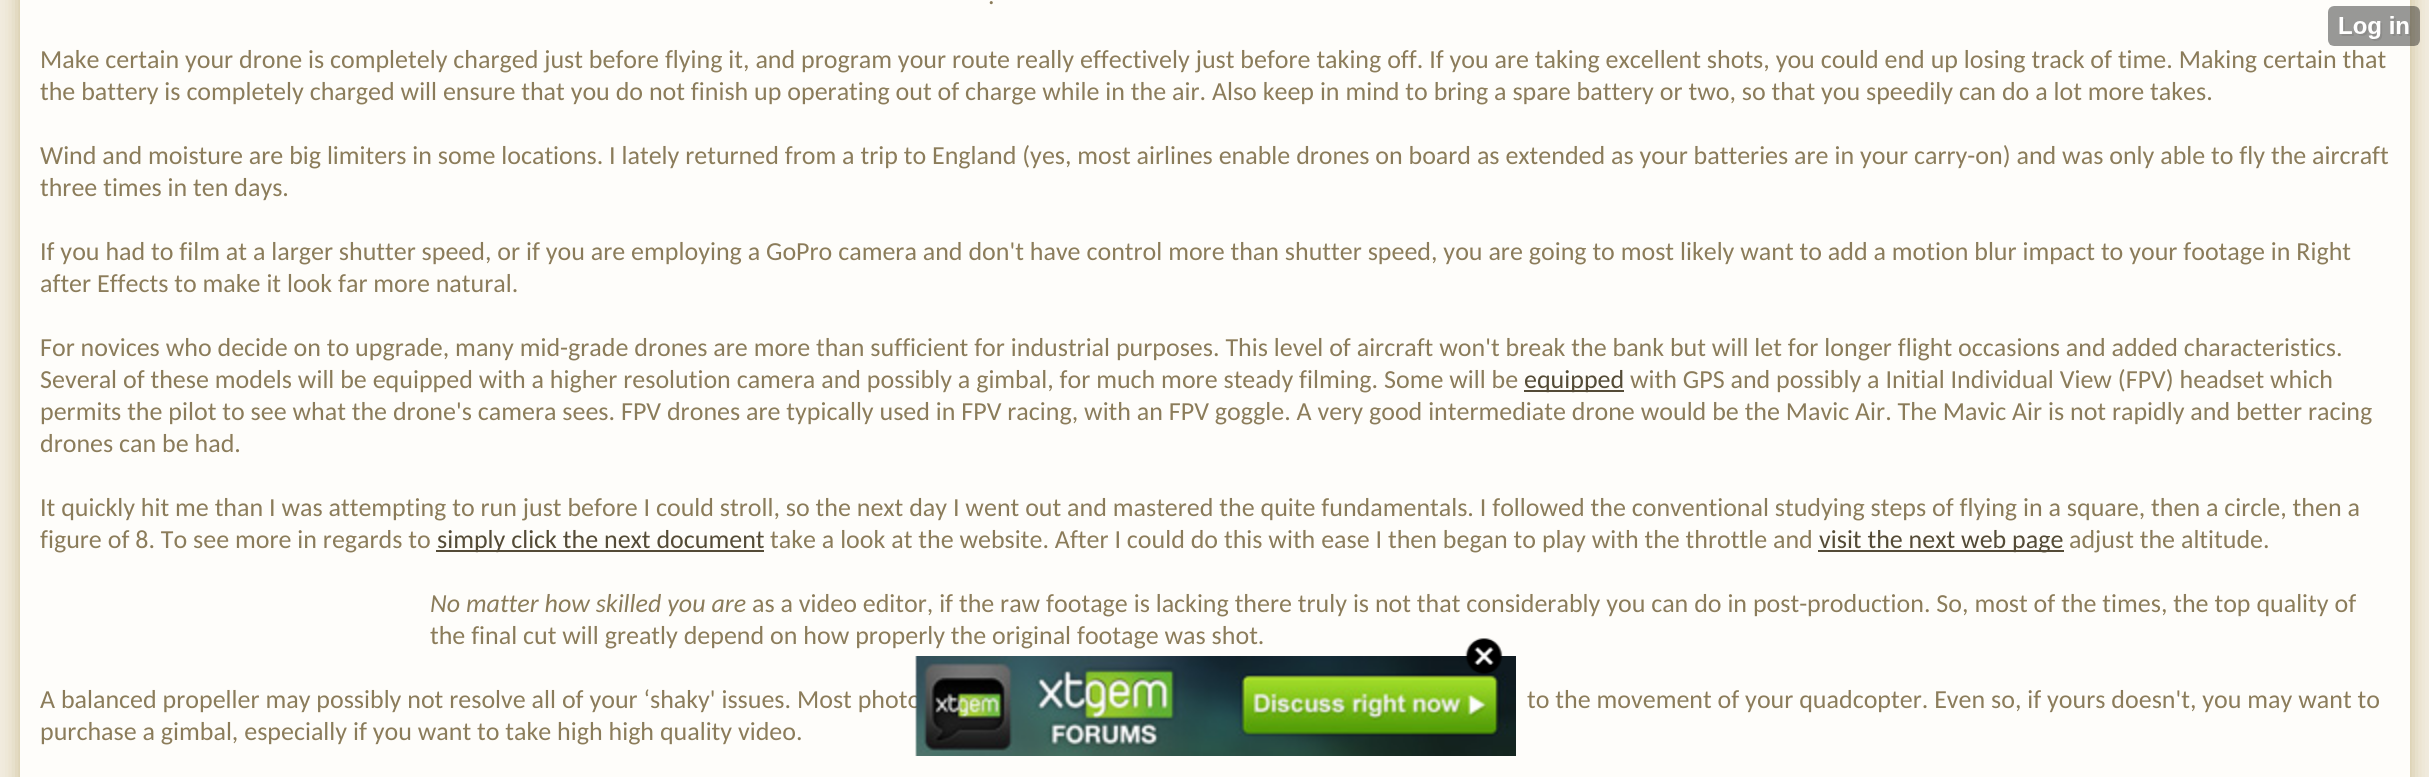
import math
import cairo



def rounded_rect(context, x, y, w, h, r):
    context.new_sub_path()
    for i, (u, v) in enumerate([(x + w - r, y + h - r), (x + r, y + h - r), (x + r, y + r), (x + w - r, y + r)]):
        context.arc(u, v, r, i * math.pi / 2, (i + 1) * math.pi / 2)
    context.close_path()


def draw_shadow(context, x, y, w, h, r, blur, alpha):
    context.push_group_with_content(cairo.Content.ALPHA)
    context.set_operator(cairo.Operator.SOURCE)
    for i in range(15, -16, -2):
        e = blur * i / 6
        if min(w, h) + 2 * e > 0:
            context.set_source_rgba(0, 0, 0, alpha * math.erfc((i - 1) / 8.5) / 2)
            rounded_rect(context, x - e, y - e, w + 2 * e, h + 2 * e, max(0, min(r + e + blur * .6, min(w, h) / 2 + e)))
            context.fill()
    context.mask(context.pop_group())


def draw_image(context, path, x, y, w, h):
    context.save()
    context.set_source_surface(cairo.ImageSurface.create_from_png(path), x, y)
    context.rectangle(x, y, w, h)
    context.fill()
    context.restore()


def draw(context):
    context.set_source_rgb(242 / 255, 236 / 255, 223 / 255)
    context.paint()
    context.set_source_rgb(201 / 255, 187 / 255, 143 / 255)
    draw_shadow(context, 20, -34, 2390, 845, 4, 10, 1)
    context.set_source_rgb(254 / 255, 253 / 255, 250 / 255)
    context.rectangle(20, 0, 2390, 777)
    context.fill()
    context.set_source_rgb(84 / 255, 75 / 255, 54 / 255)
    context.rectangle(1524, 390, 100, 2)
    context.fill()
    context.rectangle(436, 550, 328, 2)
    context.fill()
    context.rectangle(1818, 550, 246, 2)
    context.fill()
    draw_image(context, "images/1.png", 2328, 6, 92, 40)
    context.select_font_face("Carlito")
    context.set_font_size(26)
    context.set_source_rgb(139 / 255, 124 / 255, 90 / 255)
    context.move_to(988, 4)
    context.show_text(".")
    context.move_to(40, 68)
    context.show_text("Make certain your drone is completely charged just before flying it, and program your route really effectively just before taking off. If you are taking excellent shots, you could end up losing track of time. Making certain that")
    context.move_to(40, 100)
    context.show_text("the battery is completely charged will ensure that you do not finish up operating out of charge while in the air. Also keep in mind to bring a spare battery or two, so that you speedily can do a lot more takes.")
    context.move_to(40, 164)
    context.show_text("Wind and moisture are big limiters in some locations. I lately returned from a trip to England (yes, most airlines enable drones on board as extended as your batteries are in your carry-on) and was only able to fly the aircraft")
    context.move_to(40, 196)
    context.show_text("three times in ten days.")
    context.move_to(40, 260)
    context.show_text("If you had to film at a larger shutter speed, or if you are employing a GoPro camera and don't have control more than shutter speed, you are going to most likely want to add a motion blur impact to your footage in Right")
    context.move_to(40, 292)
    context.show_text("after Effects to make it look far more natural.")
    context.move_to(40, 356)
    context.show_text("For novices who decide on to upgrade, many mid-grade drones are more than sufficient for industrial purposes. This level of aircraft won't break the bank but will let for longer flight occasions and added characteristics.")
    context.move_to(40, 388)
    context.show_text("Several of these models will be equipped with a higher resolution camera and possibly a gimbal, for much more steady filming. Some will be")
    context.set_source_rgb(84 / 255, 75 / 255, 54 / 255)
    context.move_to(1524, 388)
    context.show_text("equipped")
    context.set_source_rgb(139 / 255, 124 / 255, 90 / 255)
    context.move_to(1630, 388)
    context.show_text("with GPS and possibly a Initial Individual View (FPV) headset which")
    context.move_to(40, 420)
    context.show_text("permits the pilot to see what the drone's camera sees. FPV drones are typically used in FPV racing, with an FPV goggle. A very good intermediate drone would be the Mavic Air. The Mavic Air is not rapidly and better racing")
    context.move_to(40, 452)
    context.show_text("drones can be had.")
    context.move_to(40, 516)
    context.show_text("It quickly hit me than I was attempting to run just before I could stroll, so the next day I went out and mastered the quite fundamentals. I followed the conventional studying steps of flying in a square, then a circle, then a")
    context.move_to(40, 548)
    context.show_text("figure of 8. To see more in regards to")
    context.set_source_rgb(84 / 255, 75 / 255, 54 / 255)
    context.move_to(437, 548)
    context.show_text("simply click the next document")
    context.set_source_rgb(139 / 255, 124 / 255, 90 / 255)
    context.move_to(770, 548)
    context.show_text("take a look at the website. After I could do this with ease I then began to play with the throttle and")
    context.set_source_rgb(84 / 255, 75 / 255, 54 / 255)
    context.move_to(1819, 548)
    context.show_text("visit the next web page")
    context.set_source_rgb(139 / 255, 124 / 255, 90 / 255)
    context.move_to(2069, 548)
    context.show_text("adjust the altitude.")
    context.select_font_face("Carlito", cairo.FontSlant.ITALIC)
    context.move_to(430, 612)
    context.show_text("No matter how skilled you are")
    context.select_font_face("Carlito")
    context.move_to(752, 612)
    context.show_text("as a video editor, if the raw footage is lacking there truly is not that considerably you can do in post-production. So, most of the times, the top quality of")
    context.move_to(430, 644)
    context.show_text("the final cut will greatly depend on how properly the original footage was shot.")
    context.move_to(40, 708)
    context.show_text("A balanced propeller may possibly not resolve all of your ‘shaky' issues. Most photo")
    context.move_to(1527, 708)
    context.show_text("to the movement of your quadcopter. Even so, if yours doesn't, you may want to")
    context.move_to(40, 740)
    context.show_text("purchase a gimbal, especially if you want to take high high quality video.")
    draw_image(context, "images/3.png", 915, 656, 601, 100)
    draw_image(context, "images/2.png", 1465, 638, 38, 36)


surface = cairo.ImageSurface(cairo.Format.RGB24, 2429, 777)
context = cairo.Context(surface)
options = cairo.FontOptions()
options.set_hint_metrics(cairo.HintMetrics.OFF)
options.set_hint_style(cairo.HintStyle.NONE)
context.set_font_options(options)
context.set_miter_limit(4)
draw(context)
surface.write_to_png("out.png")
